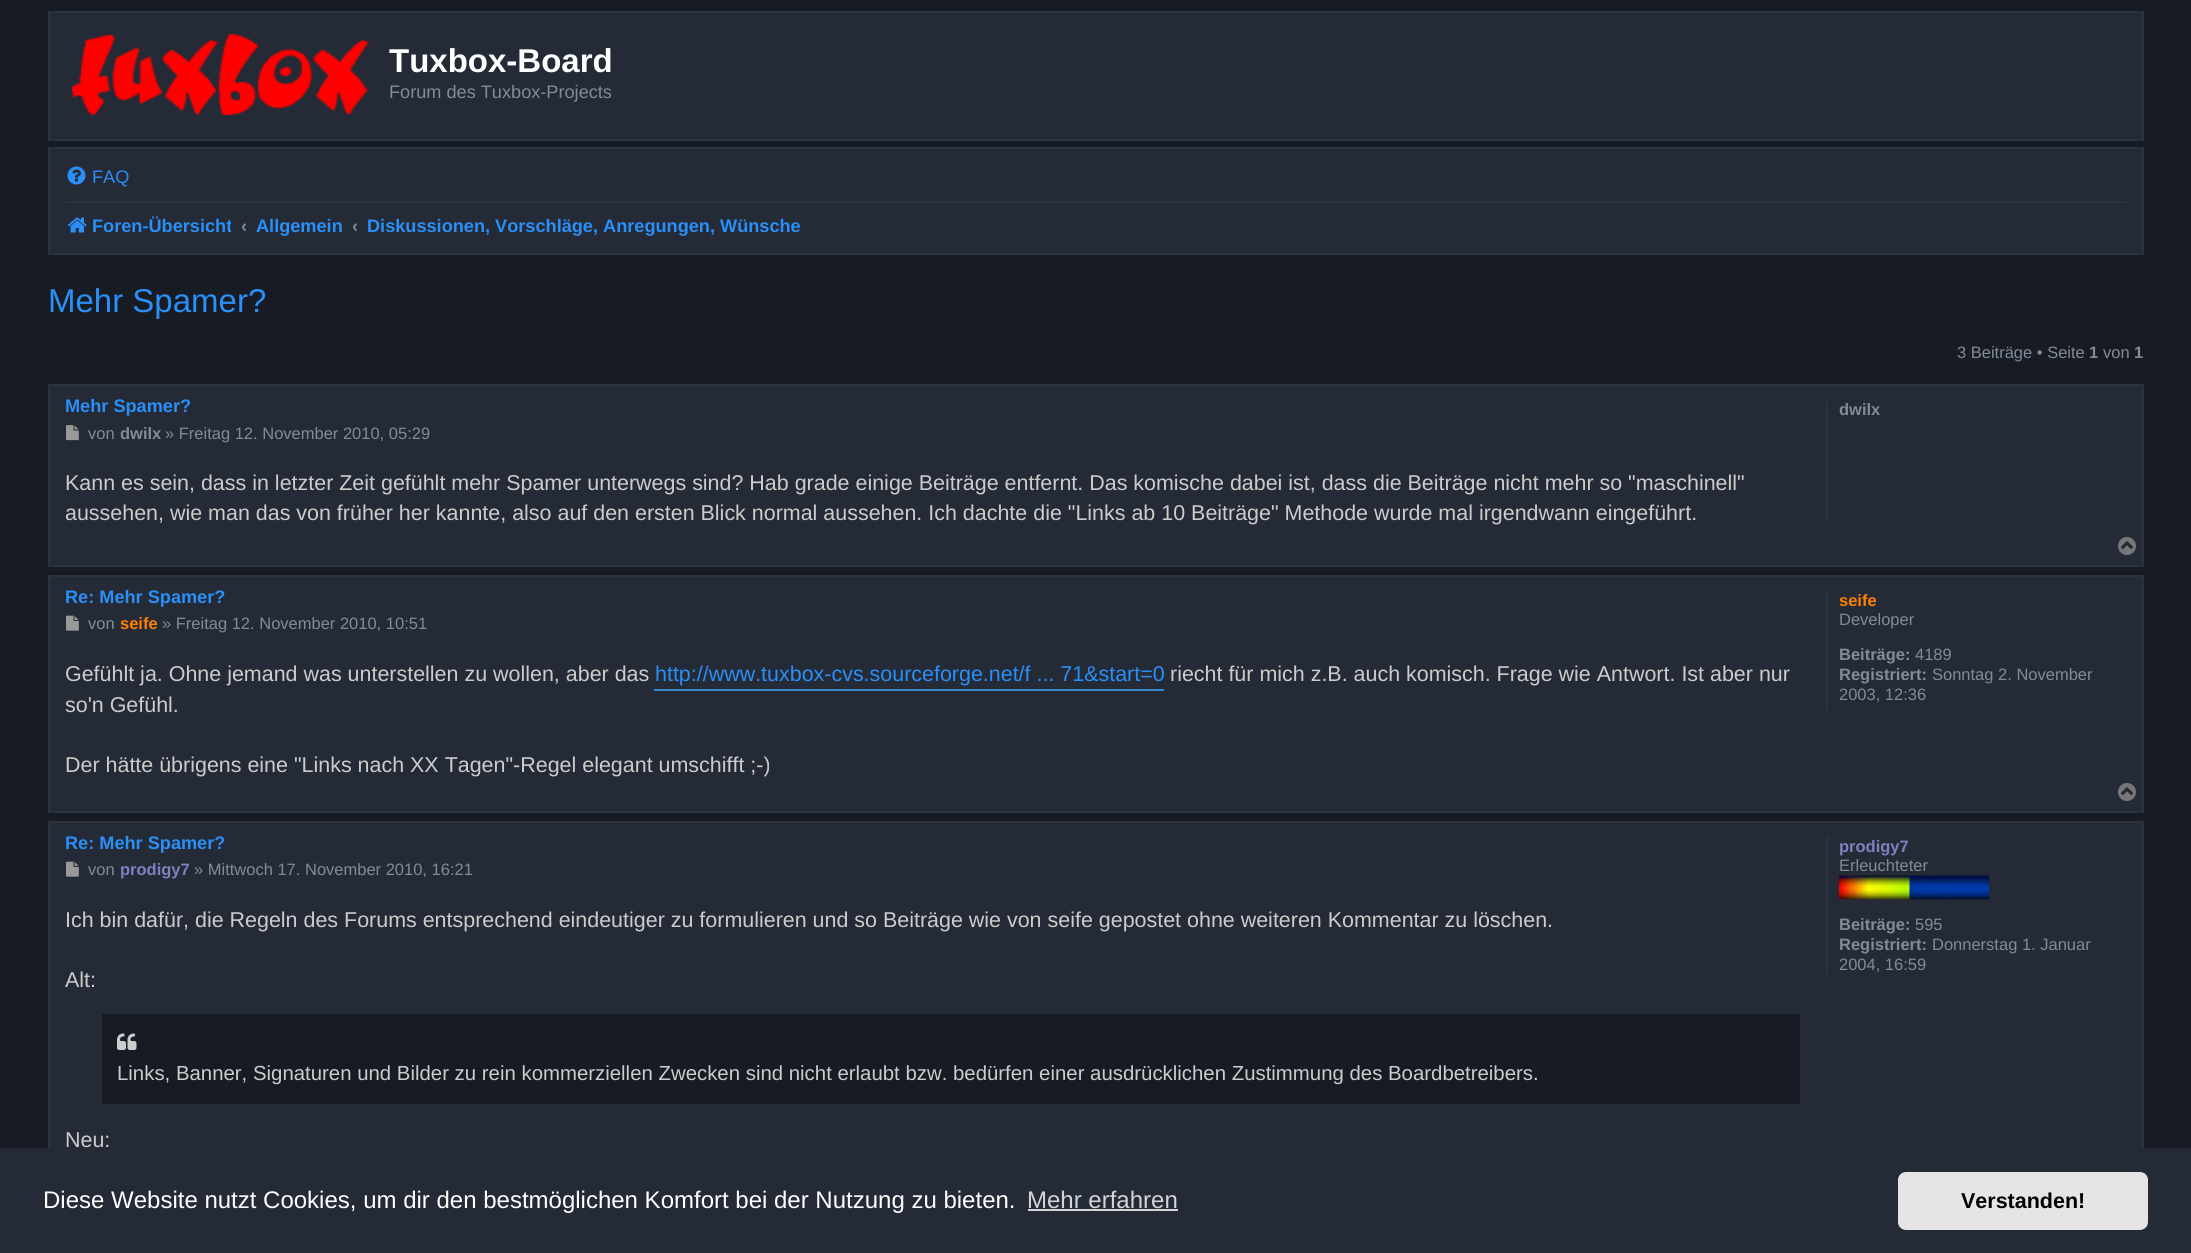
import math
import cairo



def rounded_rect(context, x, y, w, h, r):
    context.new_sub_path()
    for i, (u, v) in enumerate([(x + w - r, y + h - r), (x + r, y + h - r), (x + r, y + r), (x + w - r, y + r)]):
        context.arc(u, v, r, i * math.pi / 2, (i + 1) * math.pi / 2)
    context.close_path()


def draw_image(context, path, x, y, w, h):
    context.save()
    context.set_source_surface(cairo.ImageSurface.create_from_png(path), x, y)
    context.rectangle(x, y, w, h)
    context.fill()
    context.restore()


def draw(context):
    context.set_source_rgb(23 / 255, 27 / 255, 36 / 255)
    context.paint()
    context.set_source_rgb(36 / 255, 42 / 255, 54 / 255)
    context.rectangle(49, 12, 2094, 128)
    context.fill_preserve()
    context.set_source_rgb(45 / 255, 51 / 255, 62 / 255)
    context.stroke()
    draw_image(context, "images/1.png", 72, 34, 297, 81)
    context.set_source_rgb(36 / 255, 42 / 255, 54 / 255)
    context.rectangle(49, 148, 2094, 106)
    context.fill_preserve()
    context.set_source_rgb(45 / 255, 51 / 255, 62 / 255)
    context.stroke()
    draw_image(context, "images/2.png", 67, 166, 19, 19)
    context.rectangle(65, 201, 2062, 2)
    context.fill()
    draw_image(context, "images/3.png", 67, 217, 20, 16)
    context.set_source_rgb(36 / 255, 42 / 255, 54 / 255)
    context.rectangle(49, 385, 2094, 181)
    context.fill_preserve()
    context.set_source_rgb(45 / 255, 51 / 255, 62 / 255)
    context.stroke()
    draw_image(context, "images/4.png", 66, 425, 13, 16)
    context.rectangle(1826, 401, 2, 120)
    context.fill()
    draw_image(context, "images/5.png", 2118, 537, 18, 18)
    context.set_source_rgb(36 / 255, 42 / 255, 54 / 255)
    context.rectangle(49, 576, 2094, 236)
    context.fill_preserve()
    context.set_source_rgb(45 / 255, 51 / 255, 62 / 255)
    context.stroke()
    draw_image(context, "images/6.png", 66, 615, 13, 16)
    context.set_source_rgb(54 / 255, 138 / 255, 210 / 255)
    context.rectangle(654, 689, 510, 2)
    context.fill()
    context.set_source_rgb(45 / 255, 51 / 255, 62 / 255)
    context.rectangle(1826, 591, 2, 120)
    context.fill()
    draw_image(context, "images/5.png", 2118, 783, 18, 18)
    context.set_source_rgb(36 / 255, 42 / 255, 54 / 255)
    context.rectangle(50, 823, 2092, 325)
    context.fill()
    context.rectangle(49, 822, 2094, 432)
    context.set_source_rgb(45 / 255, 51 / 255, 62 / 255)
    context.stroke()
    draw_image(context, "images/6.png", 66, 861, 13, 16)
    context.set_source_rgb(23 / 255, 27 / 255, 36 / 255)
    context.rectangle(102, 1014, 1698, 90)
    context.fill()
    draw_image(context, "images/7.png", 117, 1033, 20, 17)
    context.set_source_rgb(45 / 255, 51 / 255, 62 / 255)
    context.rectangle(1826, 837, 2, 138)
    context.fill()
    draw_image(context, "images/8.png", 1839, 875, 150, 25)
    context.set_source_rgb(36 / 255, 42 / 255, 54 / 255)
    context.rectangle(0, 1148, 2191, 105)
    context.fill()
    context.set_source_rgb(211 / 255, 212 / 255, 215 / 255)
    context.rectangle(1028, 1209, 150, 2)
    context.fill()
    context.set_source_rgb(229 / 255, 229 / 255, 229 / 255)
    rounded_rect(context, 1898, 1172, 250, 58, 8)
    context.fill()
    context.select_font_face("Liberation Sans", cairo.FontSlant.NORMAL, cairo.FontWeight.BOLD)
    context.set_font_size(33)
    context.set_source_rgb(1, 1, 1)
    context.move_to(389, 72)
    context.show_text("Tuxbox-Board")
    context.select_font_face("Liberation Sans")
    context.set_font_size(18.15)
    context.set_source_rgb(131 / 255, 139 / 255, 152 / 255)
    context.move_to(389, 98)
    context.show_text("Forum des Tuxbox-Projects")
    context.set_source_rgb(42 / 255, 143 / 255, 247 / 255)
    context.move_to(92, 183)
    context.show_text("FAQ")
    context.save()
    context.rectangle(65, 207, 166, 39)
    context.clip()
    context.select_font_face("Liberation Sans", cairo.FontSlant.NORMAL, cairo.FontWeight.BOLD)
    context.move_to(92, 232)
    context.show_text("Foren-Übersicht")
    context.restore()
    context.select_font_face("Liberation Sans", cairo.FontSlant.NORMAL, cairo.FontWeight.BOLD)
    context.set_source_rgb(131 / 255, 139 / 255, 152 / 255)
    context.move_to(241, 232)
    context.show_text("‹")
    context.set_source_rgb(42 / 255, 143 / 255, 247 / 255)
    context.move_to(256, 232)
    context.show_text("Allgemein")
    context.set_source_rgb(131 / 255, 139 / 255, 152 / 255)
    context.move_to(352, 232)
    context.show_text("‹")
    context.set_source_rgb(42 / 255, 143 / 255, 247 / 255)
    context.move_to(367, 232)
    context.show_text("Diskussionen, Vorschläge, Anregungen, Wünsche")
    context.select_font_face("Liberation Sans")
    context.set_font_size(33)
    context.move_to(48, 312)
    context.show_text("Mehr Spamer?")
    context.set_font_size(16.5)
    context.set_source_rgb(131 / 255, 139 / 255, 152 / 255)
    context.move_to(1957, 358)
    context.show_text("3 Beiträge • Seite")
    context.select_font_face("Liberation Sans", cairo.FontSlant.NORMAL, cairo.FontWeight.BOLD)
    context.move_to(2089, 358)
    context.show_text("1")
    context.select_font_face("Liberation Sans")
    context.move_to(2103, 358)
    context.show_text("von")
    context.select_font_face("Liberation Sans", cairo.FontSlant.NORMAL, cairo.FontWeight.BOLD)
    context.move_to(2134, 358)
    context.show_text("1")
    context.set_font_size(18.15)
    context.set_source_rgb(42 / 255, 143 / 255, 247 / 255)
    context.move_to(65, 412)
    context.show_text("Mehr Spamer?")
    context.select_font_face("Liberation Sans")
    context.set_font_size(16.5)
    context.set_source_rgb(131 / 255, 139 / 255, 152 / 255)
    context.move_to(88, 439)
    context.show_text("von")
    context.select_font_face("Liberation Sans", cairo.FontSlant.NORMAL, cairo.FontWeight.BOLD)
    context.move_to(120, 439)
    context.show_text("dwilx")
    context.select_font_face("Liberation Sans")
    context.move_to(165, 439)
    context.show_text("» Freitag 12. November 2010, 05:29")
    context.set_font_size(21.45)
    context.set_source_rgb(204 / 255, 204 / 255, 204 / 255)
    context.move_to(65, 490)
    context.show_text("Kann es sein, dass in letzter Zeit gefühlt mehr Spamer unterwegs sind? Hab grade einige Beiträge entfernt. Das komische dabei ist, dass die Beiträge nicht mehr so \"maschinell\"")
    context.move_to(65, 520)
    context.show_text("aussehen, wie man das von früher her kannte, also auf den ersten Blick normal aussehen. Ich dachte die \"Links ab 10 Beiträge\" Methode wurde mal irgendwann eingeführt.")
    context.select_font_face("Liberation Sans", cairo.FontSlant.NORMAL, cairo.FontWeight.BOLD)
    context.set_font_size(16.5)
    context.set_source_rgb(131 / 255, 139 / 255, 152 / 255)
    context.move_to(1839, 415)
    context.show_text("dwilx")
    context.set_font_size(18.15)
    context.set_source_rgb(42 / 255, 143 / 255, 247 / 255)
    context.move_to(65, 603)
    context.show_text("Re: Mehr Spamer?")
    context.select_font_face("Liberation Sans")
    context.set_font_size(16.5)
    context.set_source_rgb(131 / 255, 139 / 255, 152 / 255)
    context.move_to(88, 629)
    context.show_text("von")
    context.select_font_face("Liberation Sans", cairo.FontSlant.NORMAL, cairo.FontWeight.BOLD)
    context.set_source_rgb(1, 128 / 255, 0)
    context.move_to(120, 629)
    context.show_text("seife")
    context.select_font_face("Liberation Sans")
    context.set_source_rgb(131 / 255, 139 / 255, 152 / 255)
    context.move_to(162, 629)
    context.show_text("» Freitag 12. November 2010, 10:51")
    context.set_font_size(21.45)
    context.set_source_rgb(204 / 255, 204 / 255, 204 / 255)
    context.move_to(65, 681)
    context.show_text("Gefühlt ja. Ohne jemand was unterstellen zu wollen, aber das")
    context.set_source_rgb(42 / 255, 143 / 255, 247 / 255)
    context.move_to(655, 681)
    context.show_text("http://www.tuxbox-cvs.sourceforge.net/f ... 71&start=0")
    context.set_source_rgb(204 / 255, 204 / 255, 204 / 255)
    context.move_to(1170, 681)
    context.show_text("riecht für mich z.B. auch komisch. Frage wie Antwort. Ist aber nur")
    context.move_to(65, 712)
    context.show_text("so'n Gefühl.")
    context.move_to(65, 772)
    context.show_text("Der hätte übrigens eine \"Links nach XX Tagen\"-Regel elegant umschifft ;-)")
    context.select_font_face("Liberation Sans", cairo.FontSlant.NORMAL, cairo.FontWeight.BOLD)
    context.set_font_size(16.5)
    context.set_source_rgb(1, 128 / 255, 0)
    context.move_to(1839, 606)
    context.show_text("seife")
    context.select_font_face("Liberation Sans")
    context.set_source_rgb(131 / 255, 139 / 255, 152 / 255)
    context.move_to(1839, 625)
    context.show_text("Developer")
    context.select_font_face("Liberation Sans", cairo.FontSlant.NORMAL, cairo.FontWeight.BOLD)
    context.move_to(1839, 660)
    context.show_text("Beiträge:")
    context.select_font_face("Liberation Sans")
    context.move_to(1915, 660)
    context.show_text("4189")
    context.select_font_face("Liberation Sans", cairo.FontSlant.NORMAL, cairo.FontWeight.BOLD)
    context.move_to(1839, 680)
    context.show_text("Registriert:")
    context.select_font_face("Liberation Sans")
    context.move_to(1932, 680)
    context.show_text("Sonntag 2. November")
    context.move_to(1839, 700)
    context.show_text("2003, 12:36")
    context.select_font_face("Liberation Sans", cairo.FontSlant.NORMAL, cairo.FontWeight.BOLD)
    context.set_font_size(18.15)
    context.set_source_rgb(42 / 255, 143 / 255, 247 / 255)
    context.move_to(65, 849)
    context.show_text("Re: Mehr Spamer?")
    context.select_font_face("Liberation Sans")
    context.set_font_size(16.5)
    context.set_source_rgb(131 / 255, 139 / 255, 152 / 255)
    context.move_to(88, 875)
    context.show_text("von")
    context.select_font_face("Liberation Sans", cairo.FontSlant.NORMAL, cairo.FontWeight.BOLD)
    context.set_source_rgb(128 / 255, 128 / 255, 191 / 255)
    context.move_to(120, 875)
    context.show_text("prodigy7")
    context.select_font_face("Liberation Sans")
    context.set_source_rgb(131 / 255, 139 / 255, 152 / 255)
    context.move_to(194, 875)
    context.show_text("» Mittwoch 17. November 2010, 16:21")
    context.set_font_size(21.45)
    context.set_source_rgb(204 / 255, 204 / 255, 204 / 255)
    context.move_to(65, 927)
    context.show_text("Ich bin dafür, die Regeln des Forums entsprechend eindeutiger zu formulieren und so Beiträge wie von seife gepostet ohne weiteren Kommentar zu löschen.")
    context.move_to(65, 987)
    context.show_text("Alt:")
    context.set_font_size(20.38)
    context.move_to(117, 1080)
    context.show_text("Links, Banner, Signaturen und Bilder zu rein kommerziellen Zwecken sind nicht erlaubt bzw. bedürfen einer ausdrücklichen Zustimmung des Boardbetreibers.")
    context.set_font_size(21.45)
    context.move_to(65, 1147)
    context.show_text("Neu:")
    context.select_font_face("Liberation Sans", cairo.FontSlant.NORMAL, cairo.FontWeight.BOLD)
    context.set_font_size(16.5)
    context.set_source_rgb(128 / 255, 128 / 255, 191 / 255)
    context.move_to(1839, 852)
    context.show_text("prodigy7")
    context.select_font_face("Liberation Sans")
    context.set_source_rgb(131 / 255, 139 / 255, 152 / 255)
    context.move_to(1839, 871)
    context.show_text("Erleuchteter")
    context.select_font_face("Liberation Sans", cairo.FontSlant.NORMAL, cairo.FontWeight.BOLD)
    context.move_to(1839, 930)
    context.show_text("Beiträge:")
    context.select_font_face("Liberation Sans")
    context.move_to(1915, 930)
    context.show_text("595")
    context.select_font_face("Liberation Sans", cairo.FontSlant.NORMAL, cairo.FontWeight.BOLD)
    context.move_to(1839, 950)
    context.show_text("Registriert:")
    context.select_font_face("Liberation Sans")
    context.move_to(1932, 950)
    context.show_text("Donnerstag 1. Januar")
    context.move_to(1839, 970)
    context.show_text("2004, 16:59")
    context.set_font_size(24)
    context.set_source_rgb(1, 1, 1)
    context.move_to(43, 1208)
    context.show_text("Diese Website nutzt Cookies, um dir den bestmöglichen Komfort bei der Nutzung zu bieten.")
    context.set_source_rgb(211 / 255, 212 / 255, 215 / 255)
    context.move_to(1027, 1208)
    context.show_text("Mehr erfahren")
    context.select_font_face("Liberation Sans", cairo.FontSlant.NORMAL, cairo.FontWeight.BOLD)
    context.set_font_size(21.5)
    context.set_source_rgb(0, 0, 0)
    context.move_to(1961, 1208)
    context.show_text("Verstanden!")


surface = cairo.ImageSurface(cairo.Format.RGB24, 2191, 1253)
context = cairo.Context(surface)
options = cairo.FontOptions()
options.set_hint_metrics(cairo.HintMetrics.OFF)
options.set_hint_style(cairo.HintStyle.NONE)
context.set_font_options(options)
context.set_miter_limit(4)
draw(context)
surface.write_to_png("out.png")
